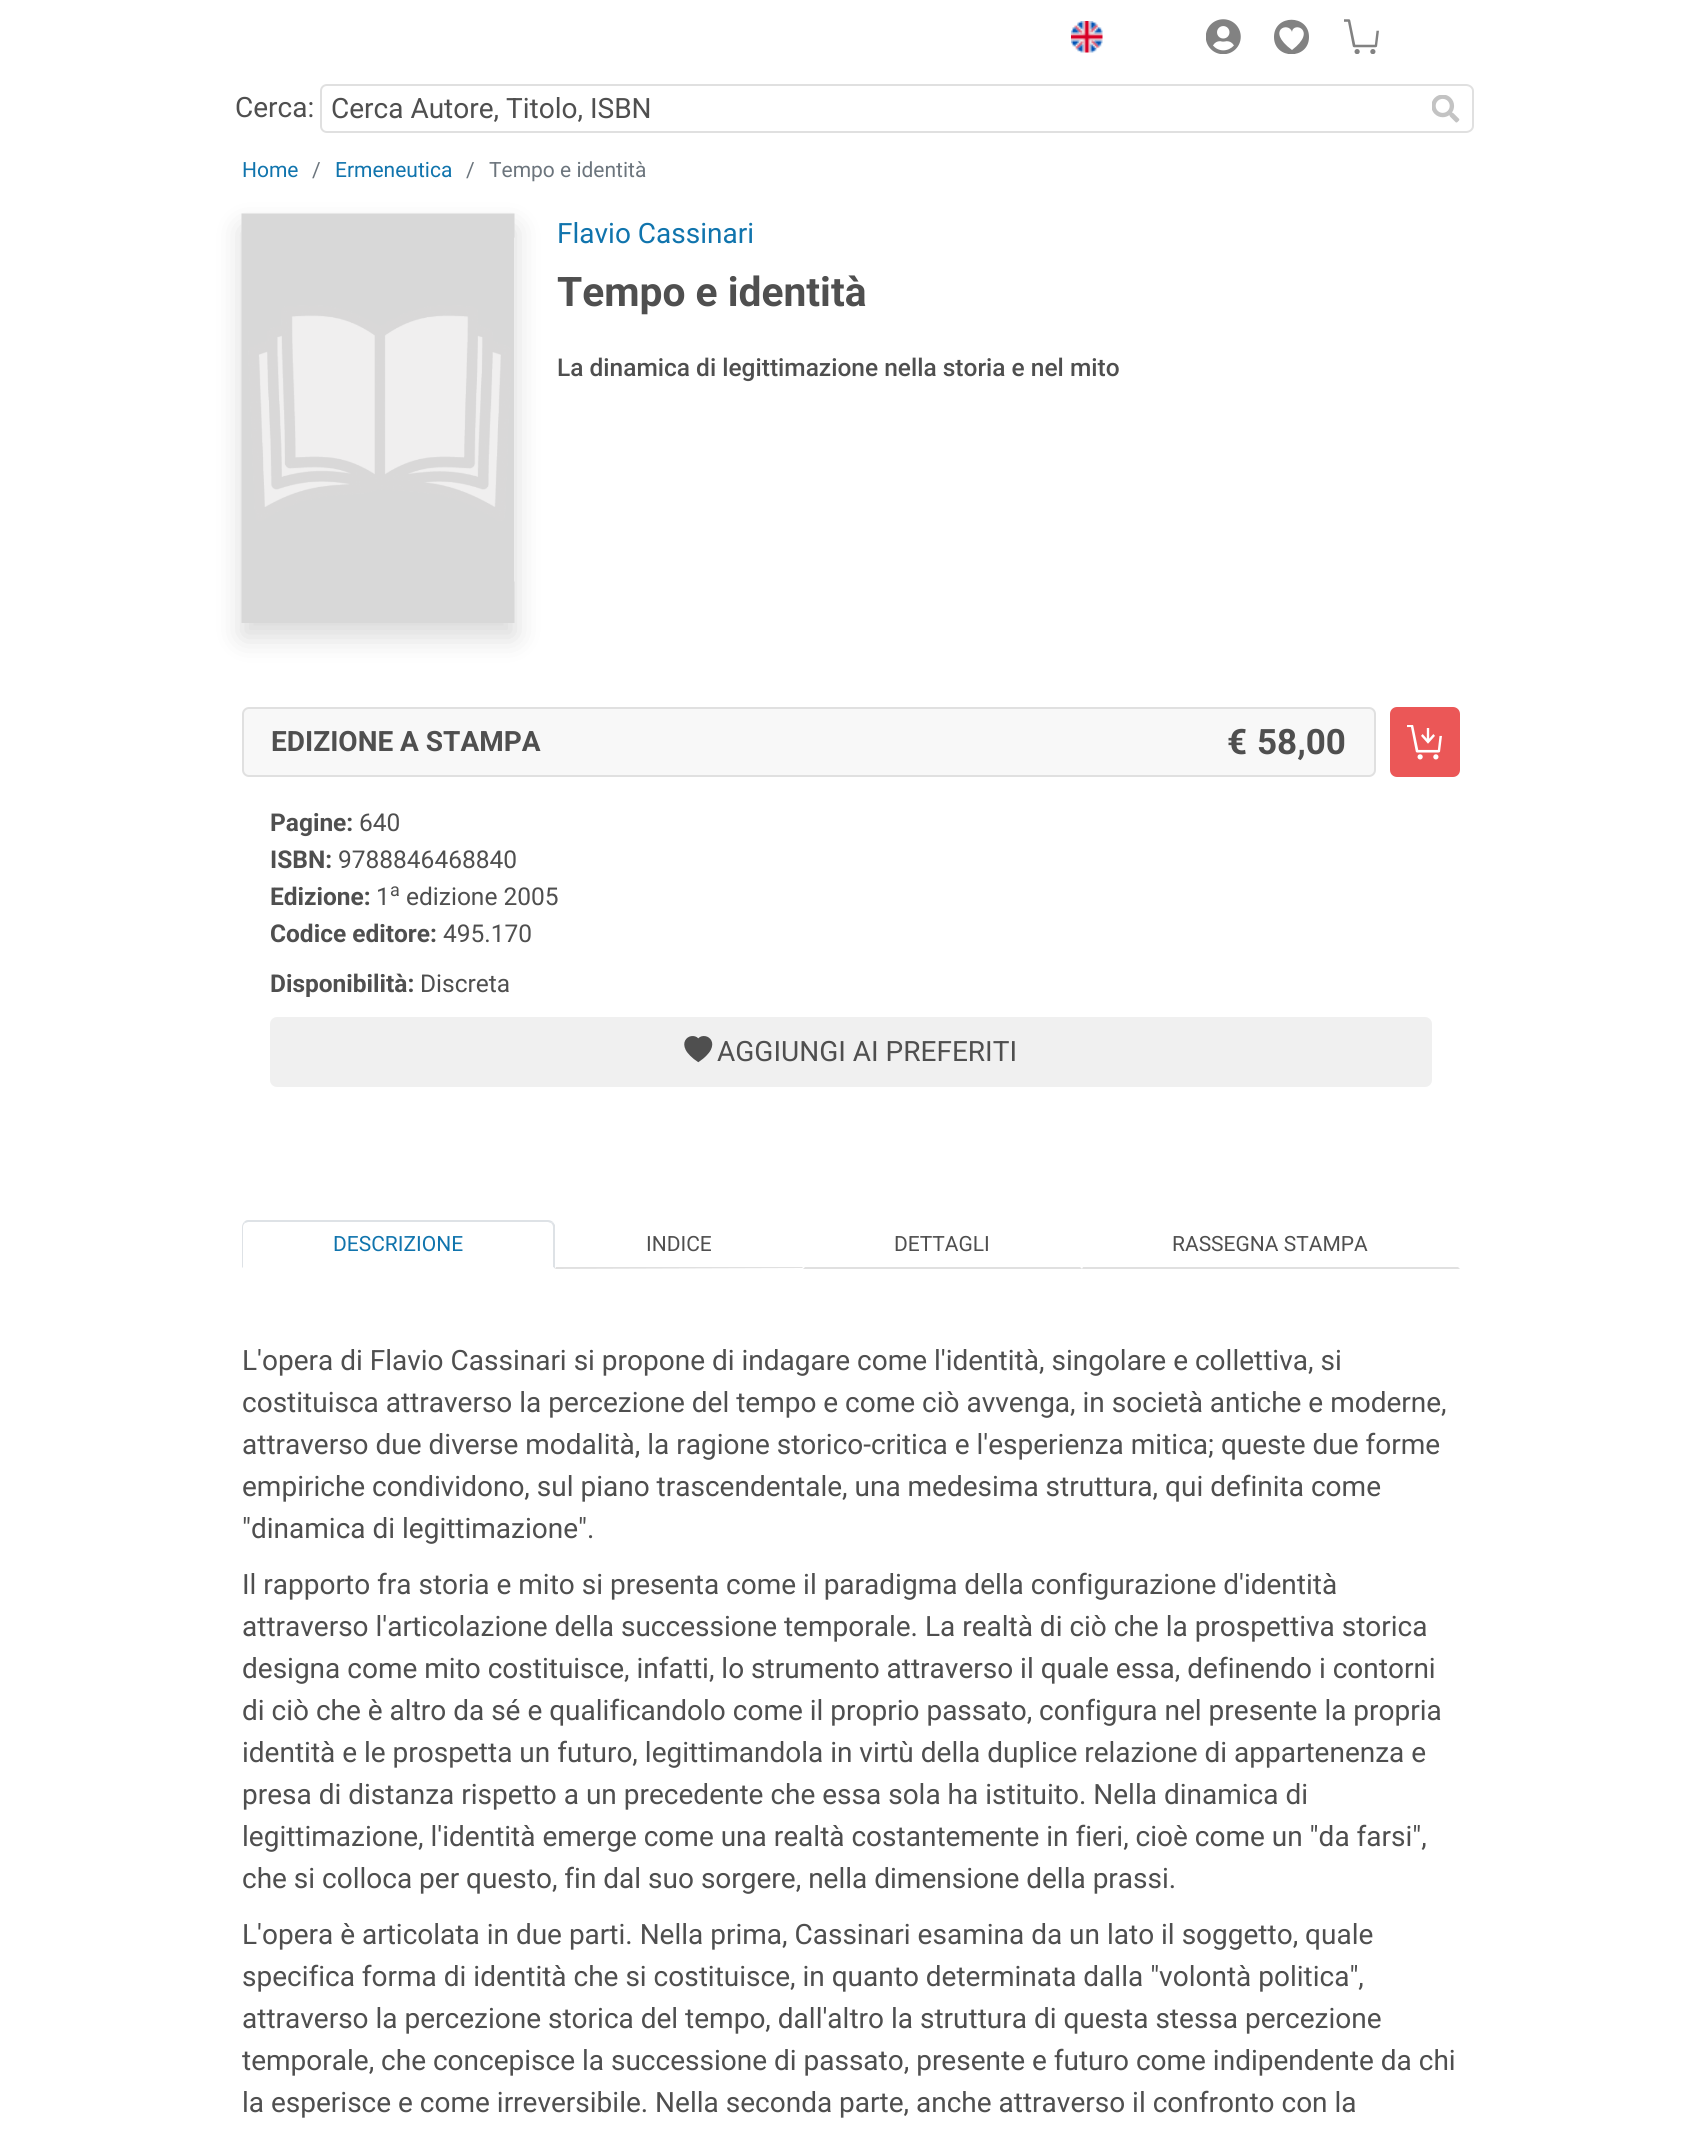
import math
import cairo



def rounded_rect(context, x, y, w, h, r):
    context.new_sub_path()
    for i, (u, v) in enumerate([(x + w - r, y + h - r), (x + r, y + h - r), (x + r, y + r), (x + w - r, y + r)]):
        context.arc(u, v, r, i * math.pi / 2, (i + 1) * math.pi / 2)
    context.close_path()


def draw_shadow(context, x, y, w, h, r, blur, alpha):
    context.push_group_with_content(cairo.Content.ALPHA)
    context.set_operator(cairo.Operator.SOURCE)
    for i in range(15, -16, -2):
        e = blur * i / 6
        if min(w, h) + 2 * e > 0:
            context.set_source_rgba(0, 0, 0, alpha * math.erfc((i - 1) / 8.5) / 2)
            rounded_rect(context, x - e, y - e, w + 2 * e, h + 2 * e, max(0, min(r + e + blur * .6, min(w, h) / 2 + e)))
            context.fill()
    context.mask(context.pop_group())


def draw_image(context, path, x, y, w, h):
    context.save()
    context.set_source_surface(cairo.ImageSurface.create_from_png(path), x, y)
    context.rectangle(x, y, w, h)
    context.fill()
    context.restore()


def draw(context):
    context.set_source_rgb(1, 1, 1)
    context.paint()
    draw_image(context, "images/1.png", 1071, 21, 32, 32)
    draw_image(context, "images/2.png", 1206, 19, 35, 35)
    context.save()
    context.rectangle(1274, 19, 35, 35)
    context.clip()
    context.set_source_rgb(130 / 255, 130 / 255, 130 / 255)
    context.new_path()
    context.move_to(1292, 50)
    context.curve_to(1265, 30, 1289, 21, 1292, 32)
    context.curve_to(1293, 21, 1318, 30, 1292, 50)
    context.close_path()
    context.move_to(1309, 37)
    context.curve_to(1309, 14, 1274, 14, 1274, 37)
    context.curve_to(1274, 60, 1309, 60, 1309, 37)
    context.close_path()
    context.fill()
    context.restore()
    draw_image(context, "images/3.png", 1344, 19, 35, 35)
    context.set_source_rgb(224 / 255, 224 / 255, 224 / 255)
    context.set_fill_rule(cairo.FillRule.EVEN_ODD)
    context.new_path()
    context.move_to(327, 84)
    context.line_to(1418, 84)
    context.line_to(1418, 133)
    context.line_to(327, 133)
    context.curve_to(323, 133, 320, 130, 320, 126)
    context.line_to(320, 91)
    context.curve_to(320, 87, 323, 84, 327, 84)
    context.close_path()
    context.move_to(327, 86)
    context.line_to(1418, 86)
    context.line_to(1418, 131)
    context.line_to(327, 131)
    context.curve_to(324, 131, 322, 129, 322, 126)
    context.line_to(322, 91)
    context.curve_to(322, 88, 324, 86, 327, 86)
    context.close_path()
    context.fill()
    context.new_path()
    context.move_to(1418, 84)
    context.line_to(1466, 84)
    context.curve_to(1470, 84, 1474, 87, 1474, 91)
    context.line_to(1474, 126)
    context.curve_to(1474, 130, 1470, 133, 1466, 133)
    context.line_to(1418, 133)
    context.close_path()
    context.move_to(1418, 86)
    context.line_to(1466, 86)
    context.curve_to(1469, 86, 1472, 88, 1472, 91)
    context.line_to(1472, 126)
    context.curve_to(1472, 129, 1469, 131, 1466, 131)
    context.line_to(1418, 131)
    context.close_path()
    context.fill()
    draw_image(context, "images/4.png", 1432, 95, 28, 28)
    context.set_source_rgb(0, 0, 0)
    draw_shadow(context, 242, 228, 273, 409, 0, 14, 0.15)
    draw_image(context, "images/5.png", 241, 213, 274, 410)
    context.set_source_rgb(248 / 255, 248 / 255, 248 / 255)
    rounded_rect(context, 243, 708, 1132, 68, 6)
    context.fill_preserve()
    context.set_source_rgb(224 / 255, 224 / 255, 224 / 255)
    context.stroke()
    context.set_source_rgb(235 / 255, 87 / 255, 87 / 255)
    rounded_rect(context, 1390, 707, 70, 70, 7)
    context.fill()
    draw_image(context, "images/6.png", 1407, 725, 35, 35)
    context.set_source_rgb(240 / 255, 240 / 255, 240 / 255)
    rounded_rect(context, 270, 1017, 1162, 70, 7)
    context.fill()
    draw_image(context, "images/7.png", 684, 1036, 29, 27)
    context.set_source_rgb(222 / 255, 226 / 255, 230 / 255)
    context.set_fill_rule(cairo.FillRule.WINDING)
    context.new_path()
    context.move_to(248, 1220)
    context.curve_to(246, 1220, 245, 1221, 244, 1222)
    context.line_to(245, 1223)
    context.line_to(248, 1222)
    context.line_to(548, 1222)
    context.line_to(551, 1223)
    context.line_to(553, 1222)
    context.curve_to(552, 1221, 550, 1220, 548, 1220)
    context.close_path()
    context.fill()
    context.new_path()
    context.move_to(553, 1222)
    context.line_to(555, 1225)
    context.line_to(555, 1269)
    context.line_to(553, 1267)
    context.line_to(553, 1227)
    context.curve_to(553, 1225, 552, 1224, 551, 1223)
    context.close_path()
    context.fill()
    context.set_source_rgb(1, 1, 1)
    context.new_path()
    context.move_to(555, 1269)
    context.line_to(242, 1269)
    context.line_to(243, 1267)
    context.line_to(553, 1267)
    context.close_path()
    context.fill()
    context.set_source_rgb(222 / 255, 226 / 255, 230 / 255)
    context.new_path()
    context.move_to(244, 1222)
    context.curve_to(243, 1223, 242, 1225, 242, 1227)
    context.line_to(242, 1268)
    context.line_to(243, 1267)
    context.line_to(243, 1227)
    context.curve_to(243, 1225, 244, 1224, 245, 1223)
    context.close_path()
    context.fill()
    context.set_source_rgb(224 / 255, 224 / 255, 224 / 255)
    context.new_path()
    context.move_to(555, 1269)
    context.line_to(556, 1267)
    context.line_to(802, 1267)
    context.line_to(803, 1268)
    context.close_path()
    context.fill()
    context.new_path()
    context.move_to(1082, 1269)
    context.line_to(1080, 1267)
    context.line_to(805, 1267)
    context.line_to(803, 1269)
    context.close_path()
    context.fill()
    context.new_path()
    context.move_to(1460, 1269)
    context.line_to(1082, 1269)
    context.line_to(1083, 1267)
    context.line_to(1458, 1267)
    context.close_path()
    context.fill()
    context.select_font_face("Roboto")
    context.set_font_size(28)
    context.set_source_rgb(79 / 255, 79 / 255, 79 / 255)
    context.move_to(235, 117)
    context.show_text("Cerca:")
    context.move_to(331, 118)
    context.show_text("Cerca Autore, Titolo, ISBN")
    context.set_font_size(21)
    context.set_source_rgb(16 / 255, 116 / 255, 173 / 255)
    context.move_to(242, 177)
    context.show_text("Home")
    context.set_source_rgb(108 / 255, 117 / 255, 125 / 255)
    context.move_to(312, 177)
    context.show_text("/")
    context.set_source_rgb(16 / 255, 116 / 255, 173 / 255)
    context.move_to(335, 177)
    context.show_text("Ermeneutica")
    context.set_source_rgb(108 / 255, 117 / 255, 125 / 255)
    context.move_to(466, 177)
    context.show_text("/")
    context.move_to(489, 177)
    context.show_text("Tempo e identità")
    context.set_font_size(28)
    context.set_source_rgb(16 / 255, 116 / 255, 173 / 255)
    context.move_to(557, 243)
    context.show_text("Flavio Cassinari")
    context.select_font_face("Roboto", cairo.FontSlant.NORMAL, cairo.FontWeight.BOLD)
    context.set_font_size(40.75)
    context.set_source_rgb(79 / 255, 79 / 255, 79 / 255)
    context.move_to(557, 306)
    context.show_text("Tempo e identità")
    context.select_font_face("Roboto Medium")
    context.set_font_size(24.5)
    context.move_to(557, 376)
    context.show_text("La dinamica di legittimazione nella storia e nel mito")
    context.select_font_face("Roboto", cairo.FontSlant.NORMAL, cairo.FontWeight.BOLD)
    context.set_font_size(28)
    context.move_to(271, 751)
    context.show_text("EDIZIONE A STAMPA")
    context.set_font_size(35)
    context.move_to(1227, 754)
    context.show_text("€")
    context.move_to(1257, 754)
    context.show_text("58,00")
    context.set_font_size(24.5)
    context.move_to(270, 831)
    context.show_text("Pagine:")
    context.select_font_face("Roboto")
    context.move_to(359, 831)
    context.show_text("640")
    context.select_font_face("Roboto", cairo.FontSlant.NORMAL, cairo.FontWeight.BOLD)
    context.move_to(270, 868)
    context.show_text("ISBN:")
    context.select_font_face("Roboto")
    context.move_to(338, 868)
    context.show_text("9788846468840")
    context.select_font_face("Roboto", cairo.FontSlant.NORMAL, cairo.FontWeight.BOLD)
    context.move_to(270, 905)
    context.show_text("Edizione:")
    context.select_font_face("Roboto")
    context.move_to(376, 905)
    context.show_text("1")
    context.set_font_size(18)
    context.move_to(390, 896)
    context.show_text("a")
    context.set_font_size(24.5)
    context.move_to(406, 905)
    context.show_text("edizione 2005")
    context.select_font_face("Roboto", cairo.FontSlant.NORMAL, cairo.FontWeight.BOLD)
    context.move_to(270, 942)
    context.show_text("Codice editore:")
    context.select_font_face("Roboto")
    context.move_to(443, 942)
    context.show_text("495.170")
    context.select_font_face("Roboto", cairo.FontSlant.NORMAL, cairo.FontWeight.BOLD)
    context.move_to(270, 992)
    context.show_text("Disponibilità:")
    context.select_font_face("Roboto")
    context.move_to(420, 992)
    context.show_text("Discreta")
    context.set_font_size(28)
    context.move_to(717, 1061)
    context.show_text("AGGIUNGI AI PREFERITI")
    context.set_font_size(21)
    context.set_source_rgb(16 / 255, 116 / 255, 173 / 255)
    context.move_to(333, 1251)
    context.show_text("DESCRIZIONE")
    context.set_source_rgb(79 / 255, 79 / 255, 79 / 255)
    context.move_to(646, 1251)
    context.show_text("INDICE")
    context.move_to(894, 1251)
    context.show_text("DETTAGLI")
    context.move_to(1172, 1251)
    context.show_text("RASSEGNA STAMPA")
    context.set_font_size(28)
    context.move_to(242, 1370)
    context.show_text("L'opera di Flavio Cassinari si propone di indagare come l'identità, singolare e collettiva, si")
    context.move_to(242, 1412)
    context.show_text("costituisca attraverso la percezione del tempo e come ciò avvenga, in società antiche e moderne,")
    context.move_to(242, 1454)
    context.show_text("attraverso due diverse modalità, la ragione storico-critica e l'esperienza mitica; queste due forme")
    context.move_to(242, 1496)
    context.show_text("empiriche condividono, sul piano trascendentale, una medesima struttura, qui definita come")
    context.move_to(242, 1538)
    context.show_text("\"dinamica di legittimazione\".")
    context.move_to(242, 1594)
    context.show_text("Il rapporto fra storia e mito si presenta come il paradigma della configurazione d'identità")
    context.move_to(242, 1636)
    context.show_text("attraverso l'articolazione della successione temporale. La realtà di ciò che la prospettiva storica")
    context.move_to(242, 1678)
    context.show_text("designa come mito costituisce, infatti, lo strumento attraverso il quale essa, definendo i contorni")
    context.move_to(242, 1720)
    context.show_text("di ciò che è altro da sé e qualificandolo come il proprio passato, configura nel presente la propria")
    context.move_to(242, 1762)
    context.show_text("identità e le prospetta un futuro, legittimandola in virtù della duplice relazione di appartenenza e")
    context.move_to(242, 1804)
    context.show_text("presa di distanza rispetto a un precedente che essa sola ha istituito. Nella dinamica di")
    context.move_to(242, 1846)
    context.show_text("legittimazione, l'identità emerge come una realtà costantemente in fieri, cioè come un \"da farsi\",")
    context.move_to(242, 1888)
    context.show_text("che si colloca per questo, fin dal suo sorgere, nella dimensione della prassi.")
    context.move_to(242, 1944)
    context.show_text("L'opera è articolata in due parti. Nella prima, Cassinari esamina da un lato il soggetto, quale")
    context.move_to(242, 1986)
    context.show_text("specifica forma di identità che si costituisce, in quanto determinata dalla \"volontà politica\",")
    context.move_to(242, 2028)
    context.show_text("attraverso la percezione storica del tempo, dall'altro la struttura di questa stessa percezione")
    context.move_to(242, 2070)
    context.show_text("temporale, che concepisce la successione di passato, presente e futuro come indipendente da chi")
    context.move_to(242, 2112)
    context.show_text("la esperisce e come irreversibile. Nella seconda parte, anche attraverso il confronto con la")


surface = cairo.ImageSurface(cairo.Format.RGB24, 1701, 2129)
context = cairo.Context(surface)
options = cairo.FontOptions()
options.set_hint_metrics(cairo.HintMetrics.OFF)
options.set_hint_style(cairo.HintStyle.NONE)
context.set_font_options(options)
context.set_miter_limit(4)
draw(context)
surface.write_to_png("out.png")
